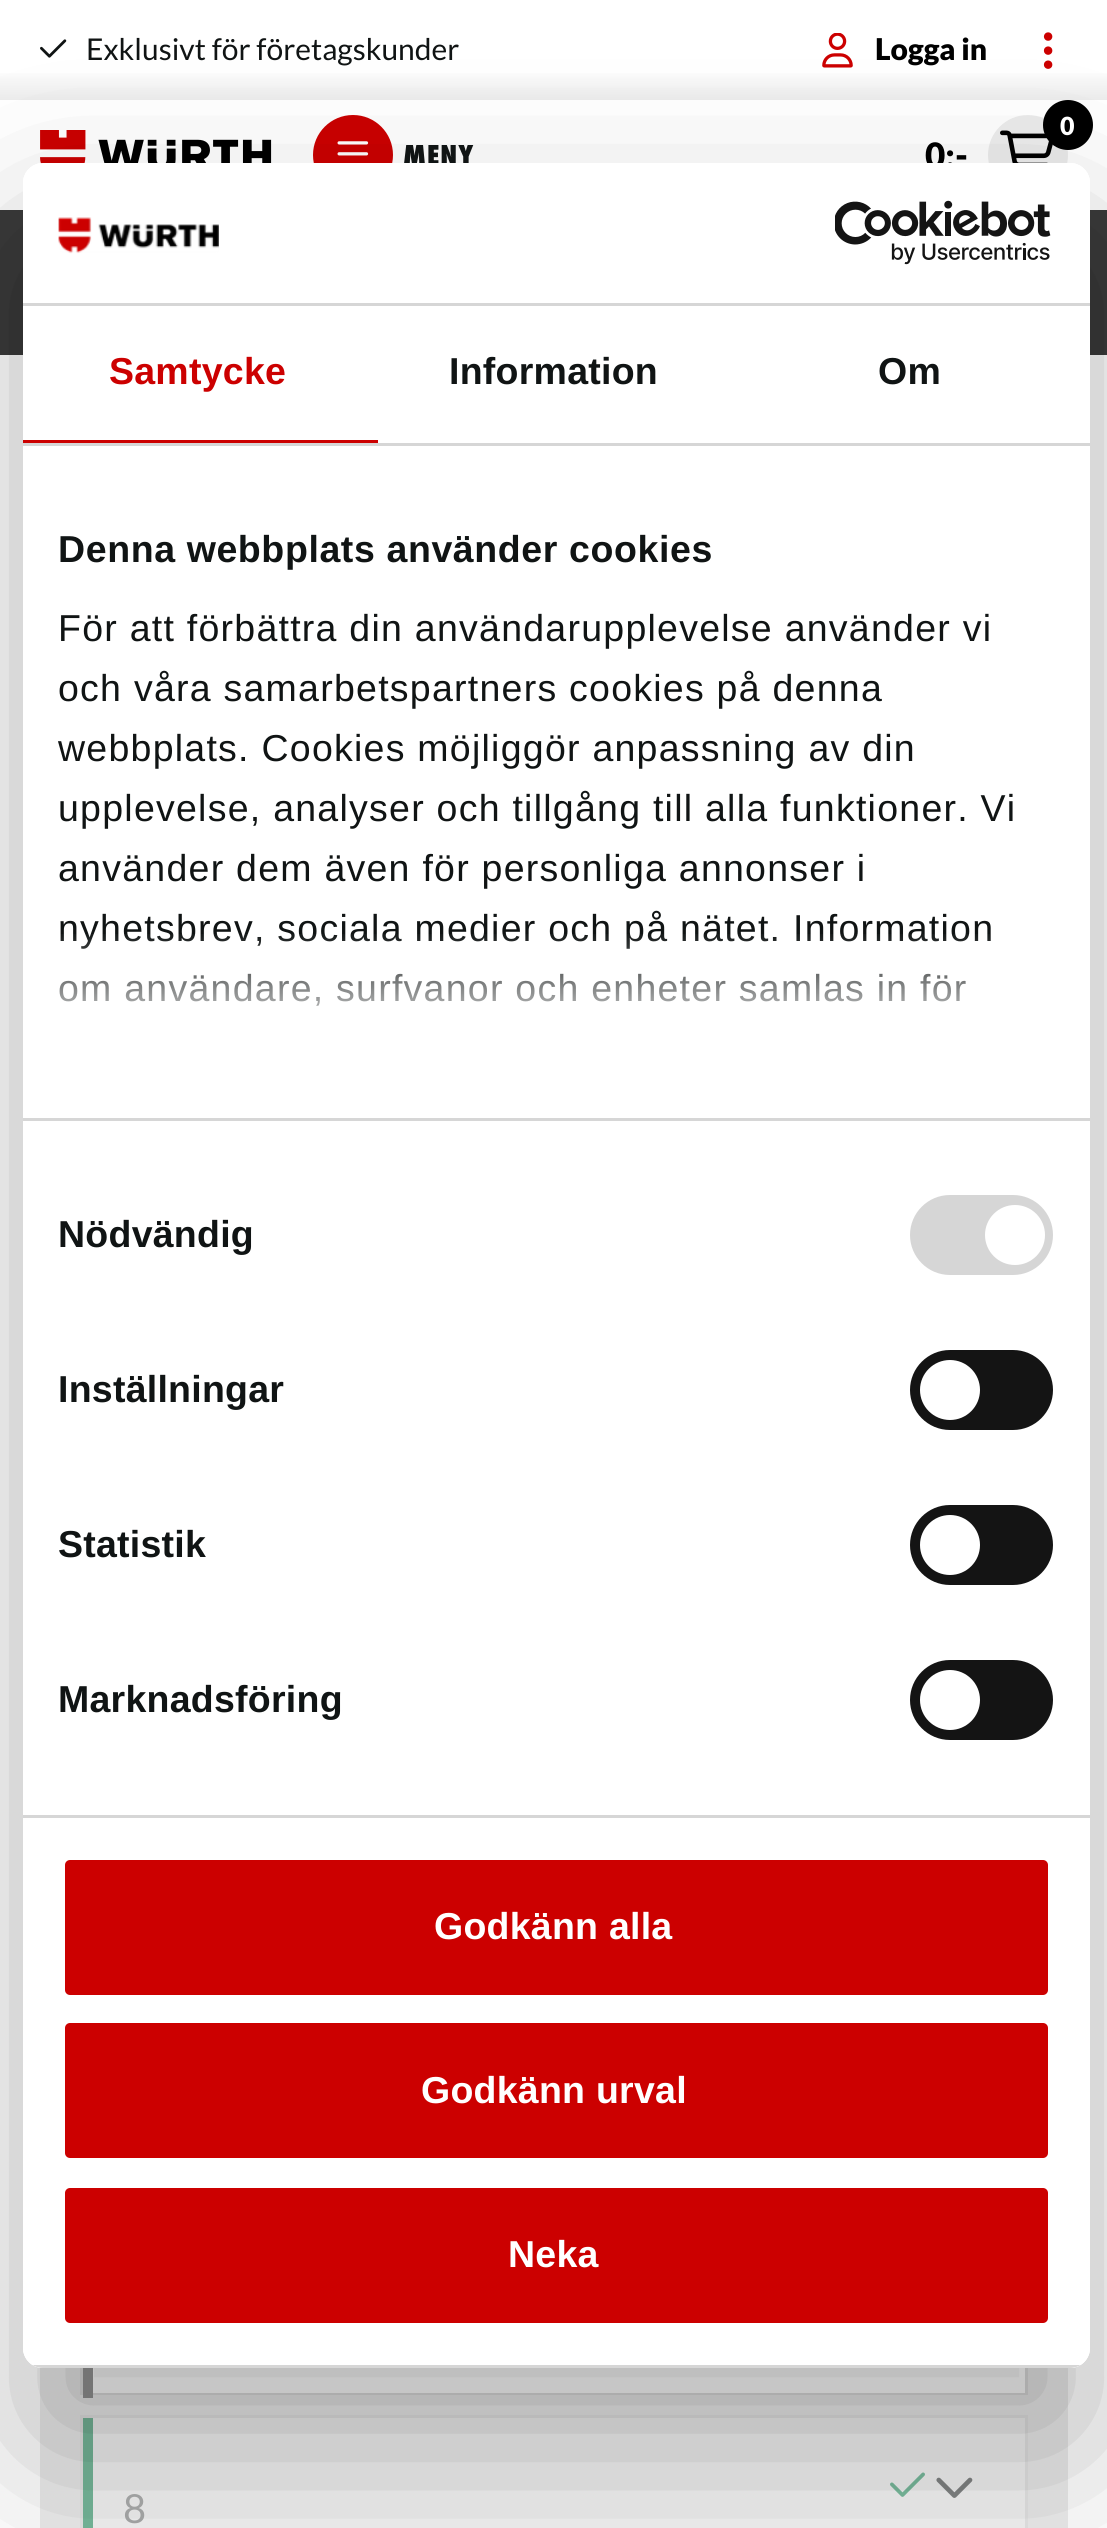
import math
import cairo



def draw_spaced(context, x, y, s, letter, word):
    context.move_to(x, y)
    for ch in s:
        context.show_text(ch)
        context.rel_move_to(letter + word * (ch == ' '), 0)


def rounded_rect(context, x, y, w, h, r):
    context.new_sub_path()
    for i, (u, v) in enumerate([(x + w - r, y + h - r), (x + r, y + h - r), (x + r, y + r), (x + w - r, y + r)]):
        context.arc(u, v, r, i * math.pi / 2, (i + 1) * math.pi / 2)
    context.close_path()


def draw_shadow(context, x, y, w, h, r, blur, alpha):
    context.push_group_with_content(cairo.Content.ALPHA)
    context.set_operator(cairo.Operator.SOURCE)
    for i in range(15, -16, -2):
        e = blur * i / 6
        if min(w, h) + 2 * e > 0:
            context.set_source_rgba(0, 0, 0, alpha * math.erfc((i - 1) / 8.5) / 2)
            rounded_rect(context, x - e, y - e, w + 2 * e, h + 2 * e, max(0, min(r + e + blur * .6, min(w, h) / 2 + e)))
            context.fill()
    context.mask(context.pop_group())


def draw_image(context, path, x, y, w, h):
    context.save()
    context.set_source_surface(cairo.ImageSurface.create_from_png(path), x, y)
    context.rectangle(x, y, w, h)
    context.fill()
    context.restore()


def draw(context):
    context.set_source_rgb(1, 1, 1)
    context.paint()
    gradient = cairo.LinearGradient(554, 0, 554, 100)
    gradient.add_color_stop_rgba(0.7, 1, 1, 1, 1)
    gradient.add_color_stop_rgba(0.8, 247 / 255, 247 / 255, 247 / 255, 1)
    gradient.add_color_stop_rgba(1, 236 / 255, 236 / 255, 236 / 255, 1)
    context.set_source(gradient)
    context.rectangle(0, 73, 1107, 27)
    context.fill()
    draw_image(context, "images/1.png", 40, 39, 27, 19)
    draw_image(context, "images/2.png", 822, 33, 31, 35)
    draw_image(context, "images/3.png", 1043, 32, 10, 37)
    draw_image(context, "images/4.png", 40, 130, 232, 34)
    context.set_source_rgb(204 / 255, 0, 0)
    context.arc(353, 155, 40, 0, 2 * math.pi)
    context.fill()
    draw_image(context, "images/5.png", 337, 141, 32, 15)
    context.set_source_rgb(236 / 255, 236 / 255, 236 / 255)
    context.arc(1028, 155, 40, 0, 2 * math.pi)
    context.fill()
    draw_image(context, "images/6.png", 1000, 130, 53, 33)
    context.set_source_rgb(0, 0, 0)
    context.arc(1068, 125, 25, 0, 2 * math.pi)
    context.fill()
    context.set_source_rgb(58 / 255, 58 / 255, 58 / 255)
    context.rectangle(0, 210, 1107, 145)
    context.fill()
    context.set_source_rgb(236 / 255, 236 / 255, 236 / 255)
    context.rectangle(40, 2367, 1028, 161)
    context.fill()
    context.rectangle(81.5, 2256.5, 945, 137)
    context.set_source_rgb(222 / 255, 222 / 255, 222 / 255)
    context.set_line_width(3)
    context.stroke()
    context.set_source_rgb(149 / 255, 149 / 255, 149 / 255)
    context.rectangle(83, 2368, 10, 30)
    context.fill()
    context.set_source_rgb(1, 1, 1)
    context.rectangle(93, 2368, 932, 25)
    context.fill()
    context.rectangle(81.5, 2416.5, 945, 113)
    context.set_source_rgb(229 / 255, 229 / 255, 229 / 255)
    context.stroke()
    context.set_source_rgb(118 / 255, 184 / 255, 154 / 255)
    context.rectangle(83, 2418, 10, 110)
    context.fill()
    context.set_source_rgb(243 / 255, 243 / 255, 243 / 255)
    context.rectangle(93, 2418, 932, 110)
    context.fill()
    draw_image(context, "images/7.png", 890, 2472, 35, 25)
    draw_image(context, "images/8.png", 936, 2477, 37, 21)
    context.save()
    context.set_fill_rule(cairo.FillRule.EVEN_ODD)
    context.new_path()
    context.move_to(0, 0)
    context.line_to(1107, 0)
    context.line_to(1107, 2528)
    context.line_to(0, 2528)
    context.close_path()
    context.move_to(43, 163)
    context.line_to(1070, 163)
    context.curve_to(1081, 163, 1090, 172, 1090, 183)
    context.line_to(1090, 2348)
    context.curve_to(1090, 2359, 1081, 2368, 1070, 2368)
    context.line_to(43, 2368)
    context.curve_to(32, 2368, 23, 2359, 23, 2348)
    context.line_to(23, 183)
    context.curve_to(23, 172, 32, 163, 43, 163)
    context.close_path()
    context.clip()
    context.set_source_rgb(0, 0, 0)
    draw_shadow(context, 23, 243, 1067, 2205, 20, 85, 0.3)
    context.restore()
    context.select_font_face("Lato")
    context.set_font_size(30)
    context.set_source_rgb(16 / 255, 20 / 255, 20 / 255)
    context.move_to(86, 60)
    context.show_text("Exklusivt för företagskunder")
    context.select_font_face("Lato Black")
    context.set_source_rgb(0, 0, 0)
    context.move_to(875, 60)
    context.show_text("Logga in")
    context.select_font_face("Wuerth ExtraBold")
    context.set_source_rgb(16 / 255, 20 / 255, 20 / 255)
    draw_spaced(context, 403, 165, "MENY", 1, 0)
    context.select_font_face("Lato Black")
    context.set_font_size(25)
    context.set_source_rgb(1, 1, 1)
    context.move_to(1060, 135)
    context.show_text("0")
    context.set_font_size(35)
    context.set_source_rgb(0, 0, 0)
    context.move_to(925, 168)
    context.show_text("0:-")
    context.select_font_face("Lato")
    context.set_font_size(40)
    context.set_source_rgb(159 / 255, 160 / 255, 160 / 255)
    context.move_to(123, 2523)
    context.show_text("8")
    context.set_source_rgb(1, 1, 1)
    rounded_rect(context, 23, 163, 1067, 2205, 20)
    context.fill()
    context.set_source_rgb(214 / 255, 214 / 255, 214 / 255)
    context.rectangle(23, 303, 1067, 3)
    context.fill()
    draw_image(context, "images/9.png", 58, 217, 161, 37)
    draw_image(context, "images/10.png", 835, 200, 216, 65)
    context.rectangle(23, 443, 1067, 3)
    context.fill()
    context.set_source_rgb(204 / 255, 0, 0)
    context.rectangle(23, 440, 355, 3)
    context.fill()
    context.select_font_face("Liberation Sans", cairo.FontSlant.NORMAL, cairo.FontWeight.BOLD)
    context.set_font_size(37.5)
    draw_spaced(context, 109, 384, "Samtycke", 0.25, 0)
    context.set_source_rgb(16 / 255, 20 / 255, 20 / 255)
    draw_spaced(context, 449, 384, "Information", 0.25, 0)
    draw_spaced(context, 878, 384, "Om", 0.25, 0)
    context.set_source_rgb(214 / 255, 214 / 255, 214 / 255)
    context.rectangle(23, 1118, 1067, 3)
    context.fill()
    context.set_source_rgb(16 / 255, 20 / 255, 20 / 255)
    draw_spaced(context, 58, 562, "Denna webbplats använder cookies", 0.6, 0)
    context.select_font_face("Liberation Sans")
    draw_spaced(context, 58, 641, "För att förbättra din användarupplevelse använder vi", 1.25, 0)
    draw_spaced(context, 58, 701, "och våra samarbetspartners cookies på denna", 1.25, 0)
    draw_spaced(context, 58, 761, "webbplats. Cookies möjliggör anpassning av din", 1.25, 0)
    draw_spaced(context, 58, 821, "upplevelse, analyser och tillgång till alla funktioner. Vi", 1.25, 0)
    draw_spaced(context, 58, 881, "använder dem även för personliga annonser i", 1.25, 0)
    draw_spaced(context, 58, 941, "nyhetsbrev, sociala medier och på nätet. Information", 1.25, 0)
    draw_spaced(context, 58, 1001, "om användare, surfvanor och enheter samlas in för", 1.25, 0)
    gradient = cairo.LinearGradient(539, 1118, 539, 931)
    gradient.add_color_stop_rgba(0, 1, 1, 1, 1)
    gradient.add_color_stop_rgba(0.5, 1, 1, 1, 0.8)
    gradient.add_color_stop_rgba(1, 1, 1, 1, 0)
    context.set_source(gradient)
    context.rectangle(59, 934, 931, 72)
    context.fill()
    context.set_source_rgb(214 / 255, 214 / 255, 214 / 255)
    context.rectangle(23, 1815, 1067, 3)
    context.fill()
    context.select_font_face("Liberation Sans", cairo.FontSlant.NORMAL, cairo.FontWeight.BOLD)
    context.set_source_rgb(16 / 255, 20 / 255, 20 / 255)
    draw_spaced(context, 58, 1247, "Nödvändig", 0.25, 0)
    context.set_source_rgb(214 / 255, 214 / 255, 214 / 255)
    rounded_rect(context, 910, 1195, 143, 80, 40)
    context.fill()
    context.set_source_rgb(1, 1, 1)
    context.arc(1015, 1235, 30, 0, 2 * math.pi)
    context.fill()
    context.set_source_rgb(16 / 255, 20 / 255, 20 / 255)
    draw_spaced(context, 58, 1402, "Inställningar", 0.25, 0)
    context.set_source_rgb(20 / 255, 20 / 255, 20 / 255)
    rounded_rect(context, 910, 1350, 143, 80, 40)
    context.fill()
    context.set_source_rgb(1, 1, 1)
    context.arc(950, 1390, 30, 0, 2 * math.pi)
    context.fill()
    context.set_source_rgb(16 / 255, 20 / 255, 20 / 255)
    draw_spaced(context, 58, 1557, "Statistik", 0.25, 0)
    context.set_source_rgb(20 / 255, 20 / 255, 20 / 255)
    rounded_rect(context, 910, 1505, 143, 80, 40)
    context.fill()
    context.set_source_rgb(1, 1, 1)
    context.arc(950, 1545, 30, 0, 2 * math.pi)
    context.fill()
    context.set_source_rgb(16 / 255, 20 / 255, 20 / 255)
    draw_spaced(context, 58, 1712, "Marknadsföring", 0.25, 0)
    context.set_source_rgb(20 / 255, 20 / 255, 20 / 255)
    rounded_rect(context, 910, 1660, 143, 80, 40)
    context.fill()
    context.set_source_rgb(1, 1, 1)
    context.arc(950, 1700, 30, 0, 2 * math.pi)
    context.fill()
    context.save()
    rounded_rect(context, 23, 163, 1067, 2205, 20)
    context.clip()
    context.set_source_rgb(214 / 255, 214 / 255, 214 / 255)
    context.rectangle(32, 2365, 1049, 3)
    context.fill()
    context.restore()
    context.set_source_rgb(204 / 255, 0, 0)
    rounded_rect(context, 62.5, 1857.5, 988, 140, 7.5)
    context.fill_preserve()
    context.set_source_rgb(1, 1, 1)
    context.set_line_width(5)
    context.stroke()
    draw_spaced(context, 434, 1939, "Godkänn alla", 0.25, 0)
    context.set_source_rgb(204 / 255, 0, 0)
    rounded_rect(context, 62.5, 2020.5, 988, 140, 7.5)
    context.fill_preserve()
    context.set_source_rgb(1, 1, 1)
    context.stroke()
    draw_spaced(context, 421, 2103, "Godkänn urval", 0.25, 0)
    context.set_source_rgb(204 / 255, 0, 0)
    rounded_rect(context, 62.5, 2185.5, 988, 140, 7.5)
    context.fill_preserve()
    context.set_source_rgb(1, 1, 1)
    context.stroke()
    draw_spaced(context, 508, 2267, "Neka", 0.25, 0)


surface = cairo.ImageSurface(cairo.Format.RGB24, 1107, 2528)
context = cairo.Context(surface)
options = cairo.FontOptions()
options.set_hint_metrics(cairo.HintMetrics.OFF)
options.set_hint_style(cairo.HintStyle.NONE)
context.set_font_options(options)
context.set_miter_limit(4)
draw(context)
surface.write_to_png("out.png")
